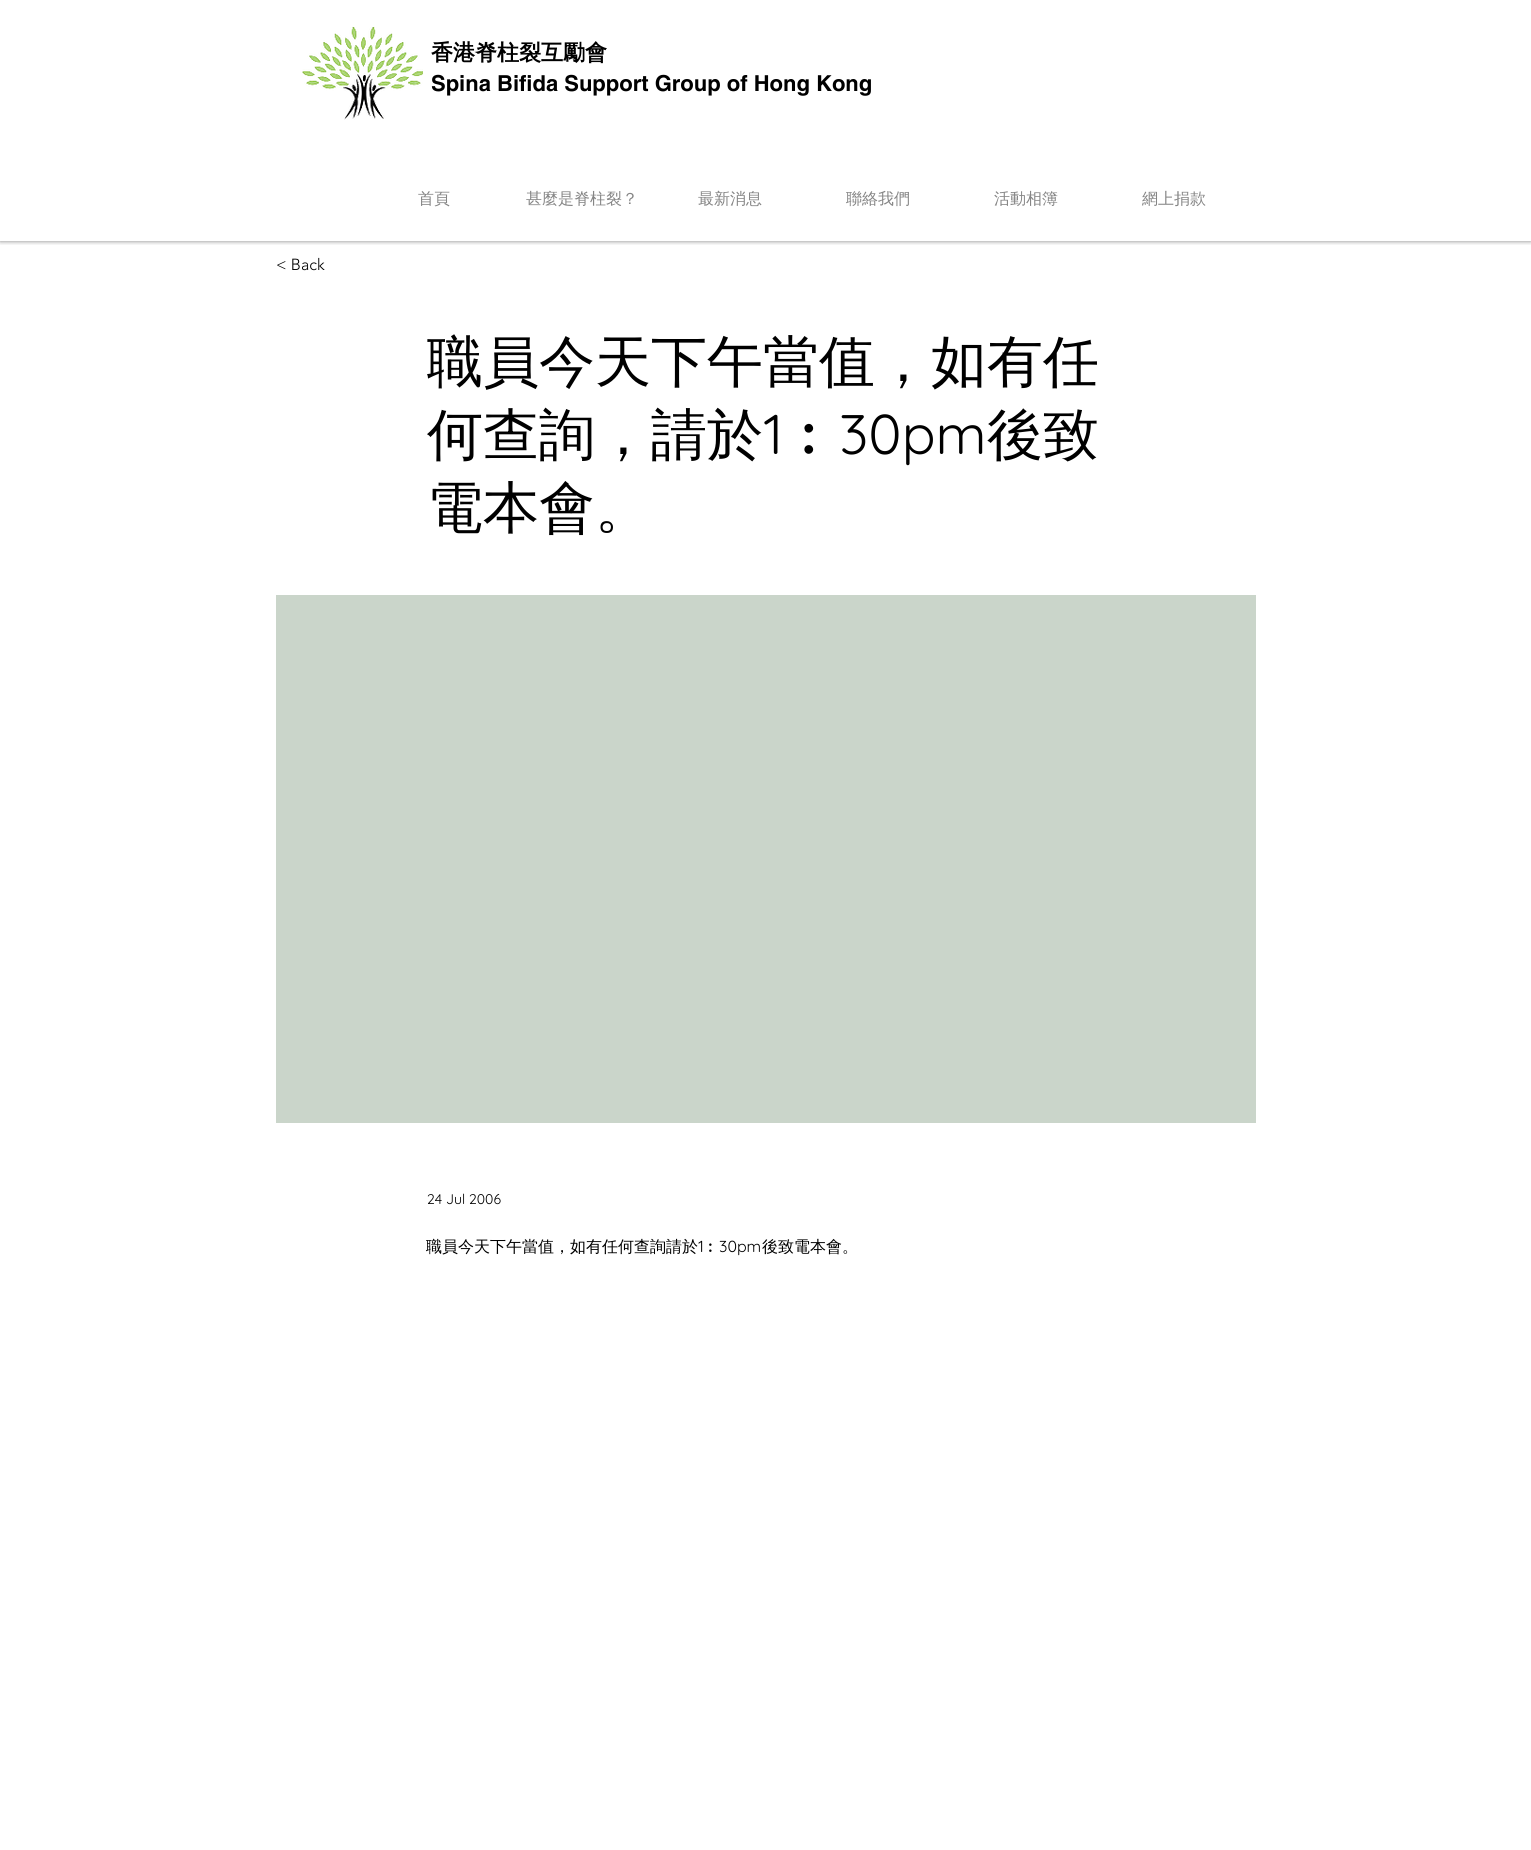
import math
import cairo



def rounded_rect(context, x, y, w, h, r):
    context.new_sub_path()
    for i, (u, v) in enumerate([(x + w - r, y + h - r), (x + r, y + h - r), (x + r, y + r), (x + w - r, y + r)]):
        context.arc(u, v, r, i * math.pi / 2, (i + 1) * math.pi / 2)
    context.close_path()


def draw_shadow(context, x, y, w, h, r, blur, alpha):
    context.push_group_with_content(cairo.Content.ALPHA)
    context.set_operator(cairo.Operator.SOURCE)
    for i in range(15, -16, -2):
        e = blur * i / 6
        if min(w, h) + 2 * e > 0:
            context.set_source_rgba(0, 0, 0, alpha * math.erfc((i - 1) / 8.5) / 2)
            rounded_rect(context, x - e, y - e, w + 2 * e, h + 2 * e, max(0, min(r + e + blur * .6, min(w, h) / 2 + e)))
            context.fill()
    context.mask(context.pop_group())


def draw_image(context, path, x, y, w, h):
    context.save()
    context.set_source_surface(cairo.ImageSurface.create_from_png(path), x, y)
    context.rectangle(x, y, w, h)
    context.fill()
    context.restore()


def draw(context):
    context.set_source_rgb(1, 1, 1)
    context.paint()
    context.save()
    context.rectangle(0, 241, 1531, 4)
    context.clip()
    context.set_source_rgb(0, 0, 0)
    draw_shadow(context, 0, 0, 1531, 241, 0, 2.5, 0.5)
    context.restore()
    draw_image(context, "images/1.png", 302, 26, 121, 94)
    context.set_source_rgb(202 / 255, 213 / 255, 202 / 255)
    context.rectangle(276, 595, 980, 528)
    context.fill()
    context.select_font_face("WenQuanYi Zen Hei", cairo.FontSlant.NORMAL, cairo.FontWeight.BOLD)
    context.set_font_size(22)
    context.set_source_rgb(0, 0, 0)
    context.move_to(431, 60)
    context.show_text("香港脊柱裂互勵會")
    context.select_font_face("helvetica", cairo.FontSlant.NORMAL, cairo.FontWeight.BOLD)
    context.move_to(431, 91)
    context.show_text("Spina Bifida Support Group of Hong Kong")
    context.select_font_face("WenQuanYi Zen Hei Medium")
    context.set_font_size(16)
    context.set_source_rgb(133 / 255, 133 / 255, 133 / 255)
    context.move_to(418, 204)
    context.show_text("首頁")
    context.move_to(526, 204)
    context.show_text("甚麼是脊柱裂？")
    context.move_to(698, 204)
    context.show_text("最新消息")
    context.move_to(846, 204)
    context.show_text("聯絡我們")
    context.move_to(994, 204)
    context.show_text("活動相簿")
    context.move_to(1142, 204)
    context.show_text("網上捐款")
    context.select_font_face("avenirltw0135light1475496 Light")
    context.set_source_rgb(0, 0, 0)
    context.move_to(276, 270)
    context.show_text("< Back")
    context.select_font_face("WenQuanYi Zen Hei Medium")
    context.set_font_size(56)
    context.move_to(427, 381)
    context.show_text("職員今天下午當值，如有任")
    context.move_to(427, 454)
    context.show_text("何查詢，請於")
    context.select_font_face("Quicksand")
    context.move_to(763, 454)
    context.show_text("1")
    context.select_font_face("WenQuanYi Zen Hei Medium")
    context.move_to(783, 454)
    context.show_text("︰")
    context.select_font_face("Quicksand")
    context.move_to(839, 454)
    context.show_text("30pm")
    context.select_font_face("WenQuanYi Zen Hei Medium")
    context.move_to(987, 454)
    context.show_text("後致")
    context.move_to(427, 527)
    context.show_text("電本會。")
    context.select_font_face("Quicksand")
    context.set_font_size(14)
    context.move_to(427, 1204)
    context.show_text("24 Jul 2006")
    context.save()
    context.rectangle(426, 1234, 680, 24)
    context.clip()
    context.select_font_face("WenQuanYi Zen Hei Medium")
    context.set_font_size(16)
    context.move_to(426, 1252)
    context.show_text("職員今天下午當值，如有任何查詢請於")
    context.restore()
    context.set_font_size(16)
    context.move_to(698, 1252)
    context.show_text("1")
    context.select_font_face("WenQuanYi Zen Hei Medium")
    context.move_to(703, 1252)
    context.show_text("︰")
    context.select_font_face("Quicksand")
    context.move_to(719, 1252)
    context.show_text("30pm")
    context.select_font_face("WenQuanYi Zen Hei Medium")
    context.move_to(762, 1252)
    context.show_text("後致電本會。")


surface = cairo.ImageSurface(cairo.Format.RGB24, 1531, 1850)
context = cairo.Context(surface)
options = cairo.FontOptions()
options.set_hint_metrics(cairo.HintMetrics.OFF)
options.set_hint_style(cairo.HintStyle.NONE)
context.set_font_options(options)
context.set_miter_limit(4)
draw(context)
surface.write_to_png("out.png")
